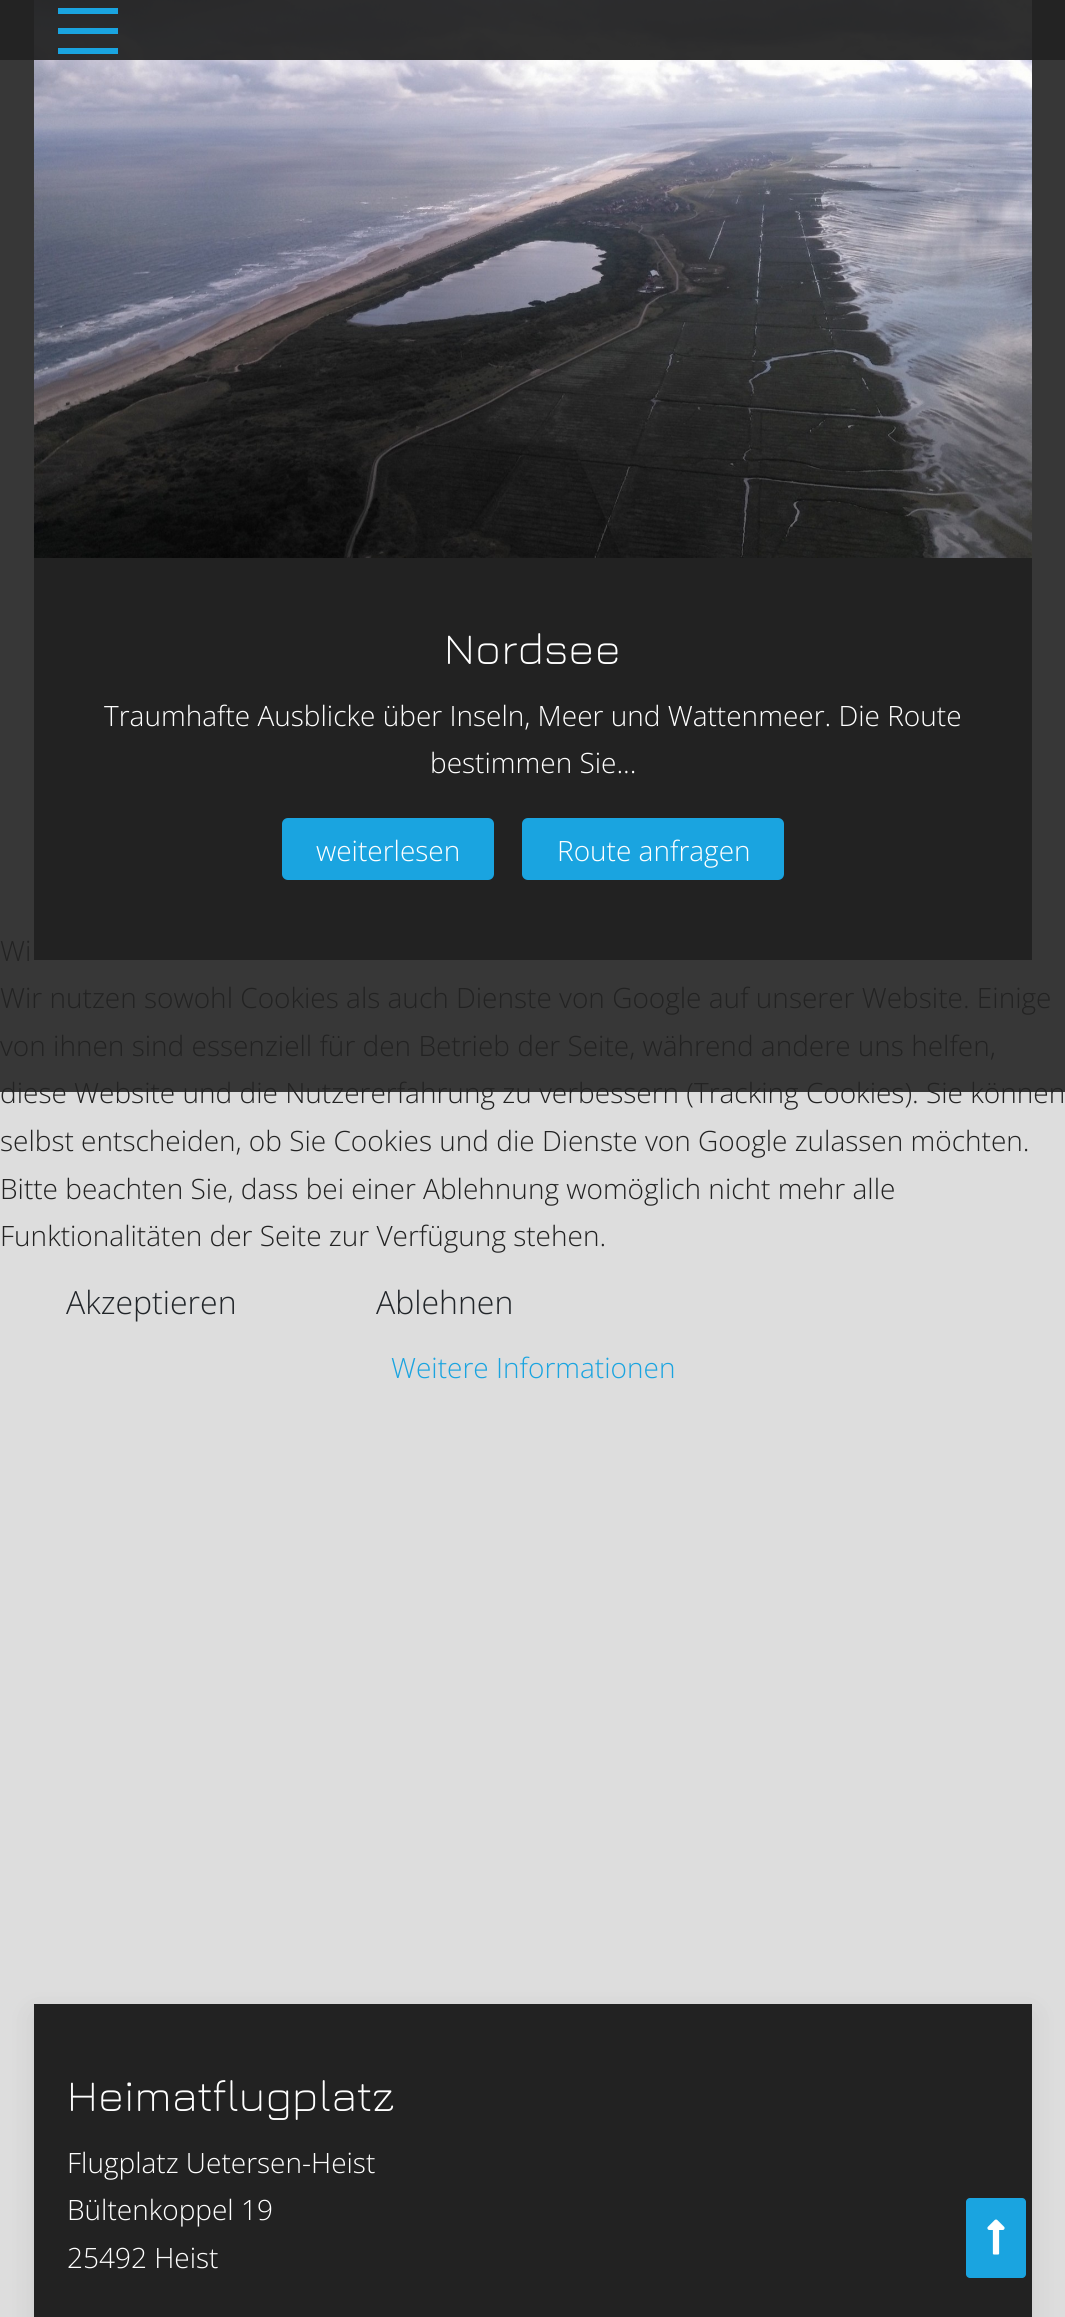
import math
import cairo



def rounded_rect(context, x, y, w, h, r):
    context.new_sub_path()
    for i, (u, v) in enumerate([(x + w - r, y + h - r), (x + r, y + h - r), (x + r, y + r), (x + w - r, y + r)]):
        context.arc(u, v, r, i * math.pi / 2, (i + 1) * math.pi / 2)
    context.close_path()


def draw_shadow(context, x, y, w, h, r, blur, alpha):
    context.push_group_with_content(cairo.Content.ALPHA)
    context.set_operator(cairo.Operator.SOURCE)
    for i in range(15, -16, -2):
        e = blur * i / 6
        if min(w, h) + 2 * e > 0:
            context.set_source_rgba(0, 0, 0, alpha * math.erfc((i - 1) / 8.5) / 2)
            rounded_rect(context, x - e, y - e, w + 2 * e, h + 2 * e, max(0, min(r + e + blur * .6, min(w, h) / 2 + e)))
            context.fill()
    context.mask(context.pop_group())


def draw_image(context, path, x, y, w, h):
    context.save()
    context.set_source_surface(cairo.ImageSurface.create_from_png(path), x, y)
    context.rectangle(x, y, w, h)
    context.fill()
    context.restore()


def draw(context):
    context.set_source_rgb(55 / 255, 55 / 255, 55 / 255)
    context.paint()
    draw_image(context, "images/1.png", 34, 0, 998, 558)
    context.set_source_rgba(34 / 255, 34 / 255, 34 / 255, 0.94)
    context.rectangle(0, 0, 1065, 60)
    context.fill()
    context.set_source_rgb(26 / 255, 164 / 255, 224 / 255)
    context.rectangle(58, 28, 60, 6)
    context.fill()
    context.rectangle(58, 8, 60, 6)
    context.fill()
    context.rectangle(58, 48, 60, 6)
    context.fill()
    context.set_source_rgb(34 / 255, 34 / 255, 34 / 255)
    context.rectangle(34, 558, 998, 402)
    context.fill()
    context.set_source_rgb(26 / 255, 164 / 255, 224 / 255)
    rounded_rect(context, 283, 819, 210, 60, 5)
    context.fill_preserve()
    context.stroke()
    rounded_rect(context, 523, 819, 260, 60, 5)
    context.fill_preserve()
    context.stroke()
    context.set_source_rgb(221 / 255, 221 / 255, 221 / 255)
    context.rectangle(0, 1092, 1065, 1225)
    context.fill()
    context.set_source_rgb(0, 0, 0)
    draw_shadow(context, 34, 2014, 998, 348, 0, 15, 0.08)
    context.set_source_rgb(34 / 255, 34 / 255, 34 / 255)
    context.rectangle(34, 2004, 998, 313)
    context.fill()
    context.set_source_rgb(26 / 255, 164 / 255, 224 / 255)
    rounded_rect(context, 966, 2198, 60, 80, 4)
    context.fill()
    draw_image(context, "images/2.png", 987, 2219, 18, 36)
    context.select_font_face("Jura Light")
    context.set_font_size(44.75)
    context.set_source_rgb(1, 1, 1)
    context.move_to(444, 664)
    context.show_text("Nordsee")
    context.select_font_face("Open Sans Light")
    context.set_font_size(28)
    context.move_to(104, 726)
    context.show_text("Traumhafte Ausblicke über Inseln, Meer und Wattenmeer. Die Route")
    context.move_to(430, 773)
    context.show_text("bestimmen Sie...")
    context.move_to(316, 861)
    context.show_text("weiterlesen")
    context.move_to(557, 861)
    context.show_text("Route anfragen")
    context.select_font_face("Jura Light")
    context.set_font_size(44.75)
    context.move_to(67, 2111)
    context.show_text("Heimatflugplatz")
    context.select_font_face("Open Sans Light")
    context.set_font_size(28)
    context.move_to(67, 2173)
    context.show_text("Flugplatz Uetersen-Heist")
    context.move_to(67, 2220)
    context.show_text("Bültenkoppel 19")
    context.move_to(67, 2268)
    context.show_text("25492 Heist")
    context.set_source_rgb(34 / 255, 34 / 255, 34 / 255)
    context.move_to(0, 961)
    context.show_text("Wi")
    context.move_to(0, 1008)
    context.show_text("Wir nutzen sowohl Cookies als auch Dienste von Google auf unserer Website. Einige")
    context.move_to(0, 1056)
    context.show_text("von ihnen sind essenziell für den Betrieb der Seite, während andere uns helfen,")
    context.move_to(0, 1103)
    context.show_text("diese Website und die Nutzererfahrung zu verbessern (Tracking Cookies). Sie können")
    context.move_to(0, 1151)
    context.show_text("selbst entscheiden, ob Sie Cookies und die Dienste von Google zulassen möchten.")
    context.move_to(0, 1199)
    context.show_text("Bitte beachten Sie, dass bei einer Ablehnung womöglich nicht mehr alle")
    context.move_to(0, 1246)
    context.show_text("Funktionalitäten der Seite zur Verfügung stehen.")
    context.set_font_size(32)
    context.set_source_rgb(33 / 255, 37 / 255, 41 / 255)
    context.move_to(66, 1314)
    context.show_text("Akzeptieren")
    context.move_to(376, 1314)
    context.show_text("Ablehnen")
    context.set_font_size(28)
    context.set_source_rgb(26 / 255, 164 / 255, 224 / 255)
    context.move_to(391, 1378)
    context.show_text("Weitere Informationen")


surface = cairo.ImageSurface(cairo.Format.RGB24, 1065, 2317)
context = cairo.Context(surface)
options = cairo.FontOptions()
options.set_hint_metrics(cairo.HintMetrics.OFF)
options.set_hint_style(cairo.HintStyle.NONE)
context.set_font_options(options)
context.set_miter_limit(4)
draw(context)
surface.write_to_png("out.png")
